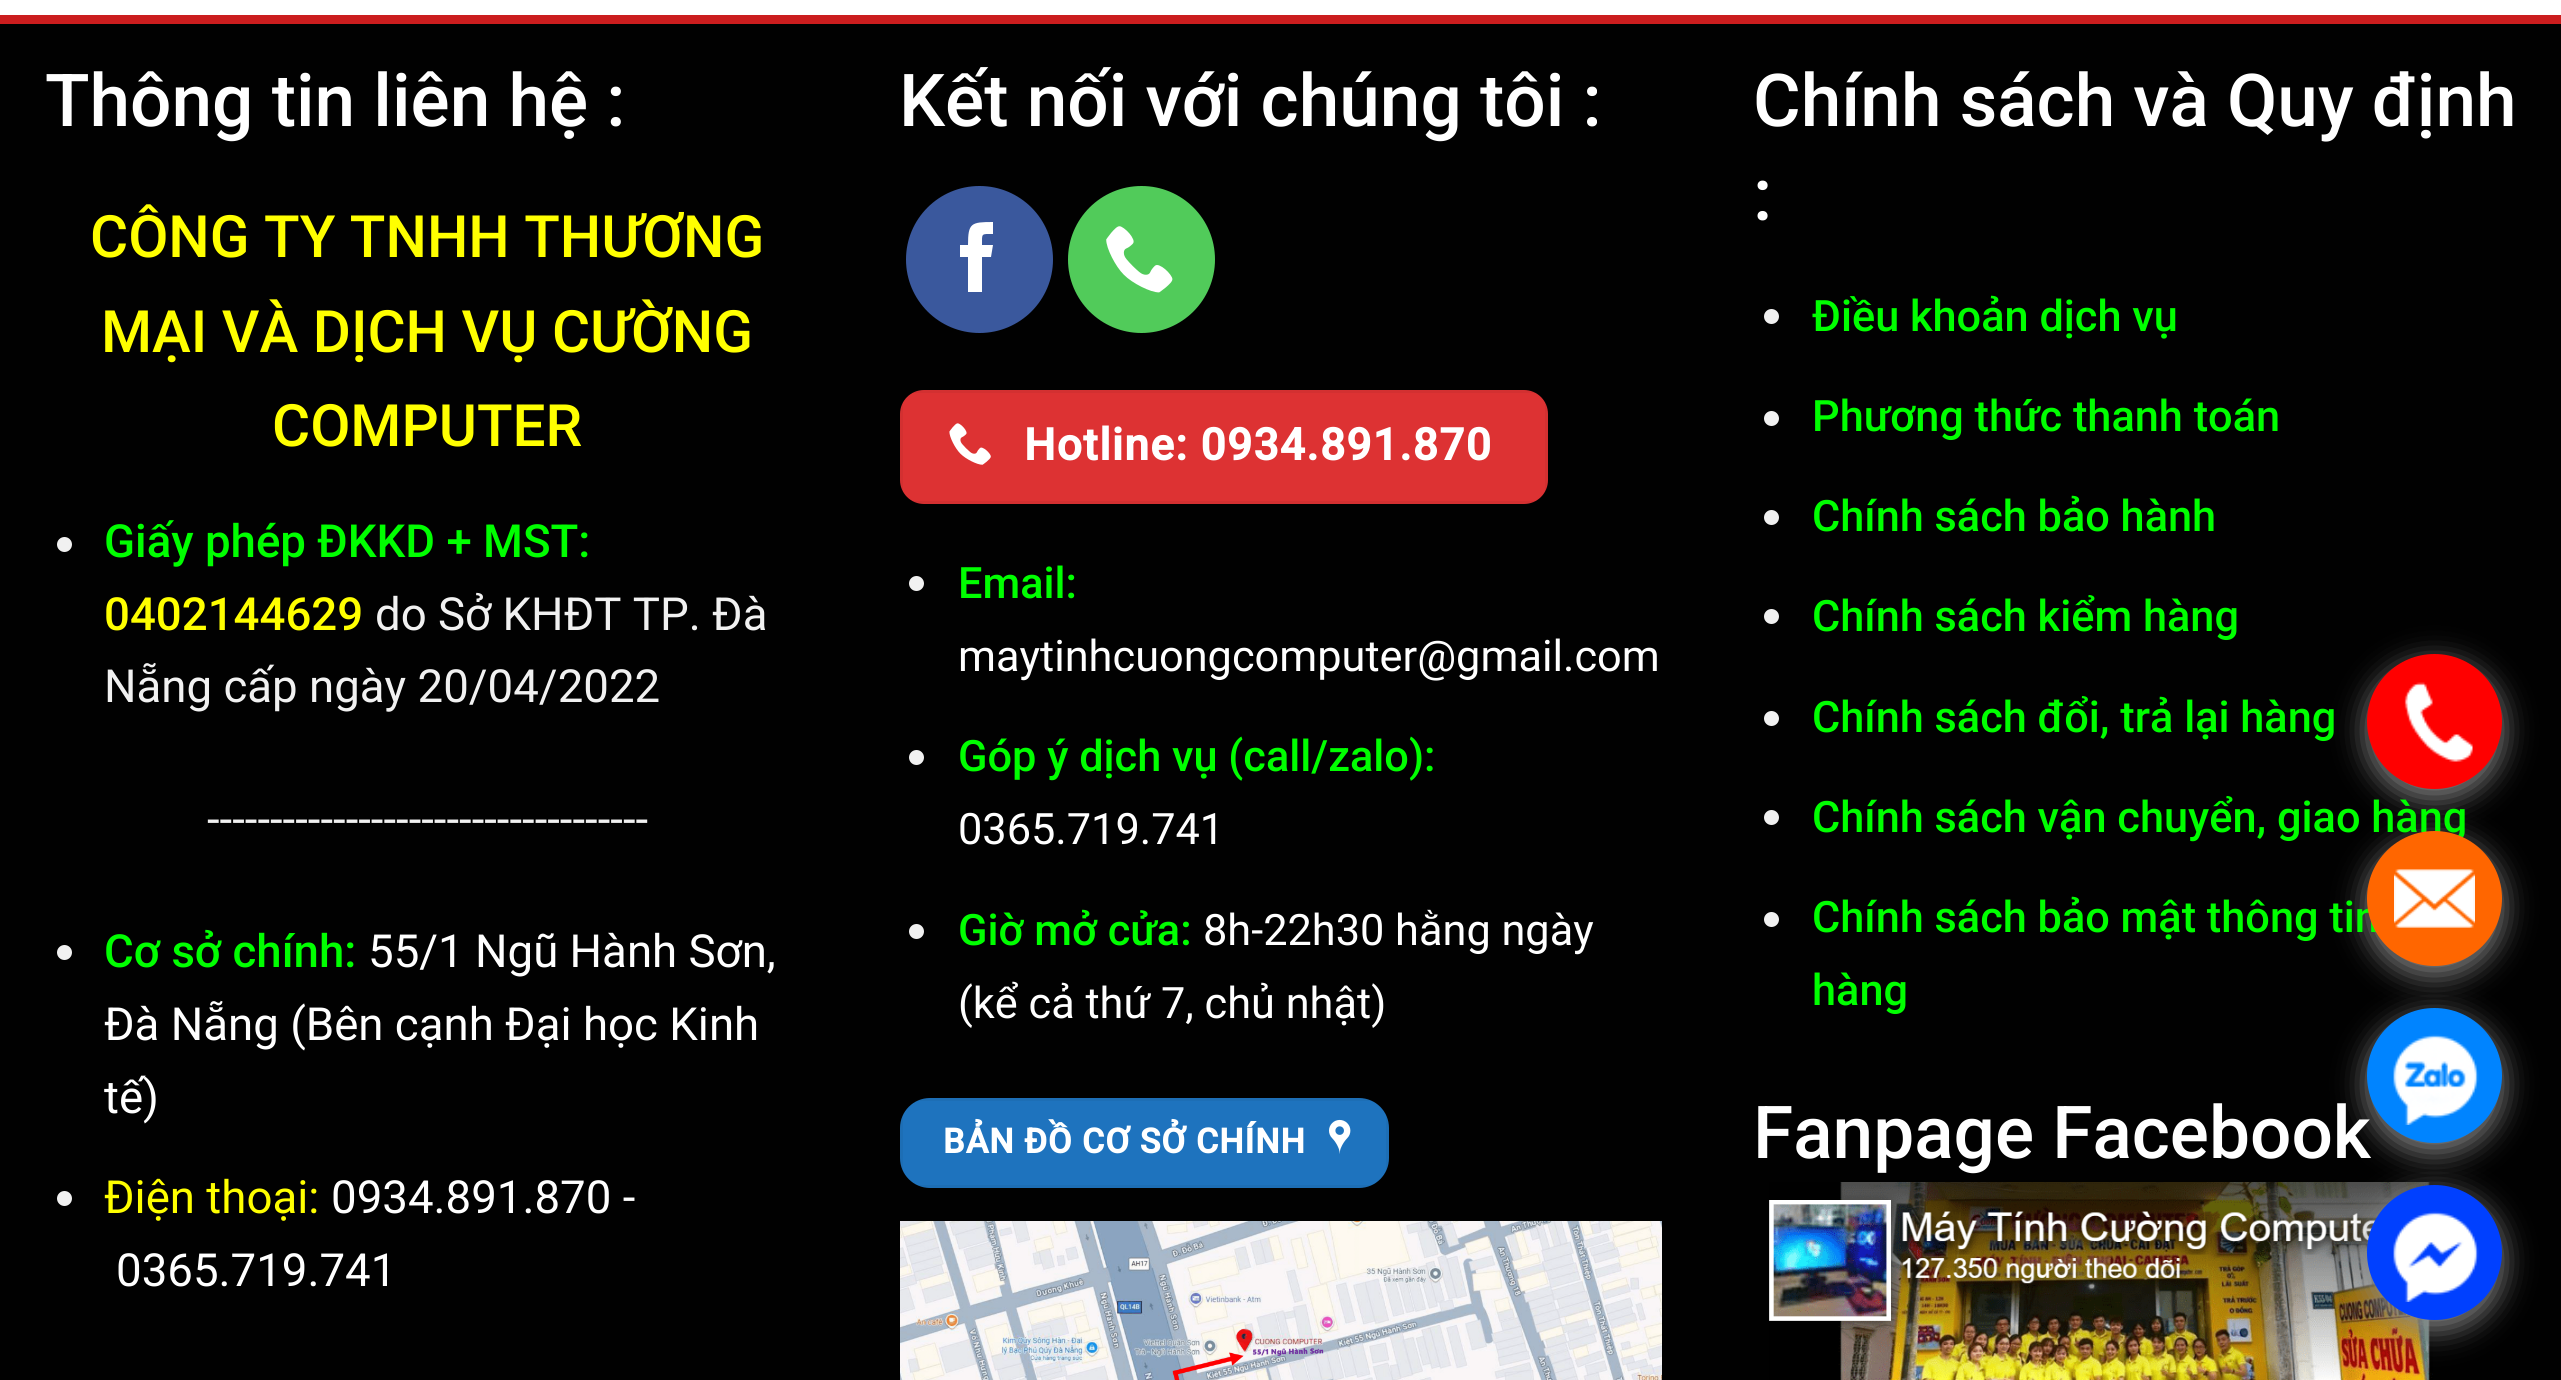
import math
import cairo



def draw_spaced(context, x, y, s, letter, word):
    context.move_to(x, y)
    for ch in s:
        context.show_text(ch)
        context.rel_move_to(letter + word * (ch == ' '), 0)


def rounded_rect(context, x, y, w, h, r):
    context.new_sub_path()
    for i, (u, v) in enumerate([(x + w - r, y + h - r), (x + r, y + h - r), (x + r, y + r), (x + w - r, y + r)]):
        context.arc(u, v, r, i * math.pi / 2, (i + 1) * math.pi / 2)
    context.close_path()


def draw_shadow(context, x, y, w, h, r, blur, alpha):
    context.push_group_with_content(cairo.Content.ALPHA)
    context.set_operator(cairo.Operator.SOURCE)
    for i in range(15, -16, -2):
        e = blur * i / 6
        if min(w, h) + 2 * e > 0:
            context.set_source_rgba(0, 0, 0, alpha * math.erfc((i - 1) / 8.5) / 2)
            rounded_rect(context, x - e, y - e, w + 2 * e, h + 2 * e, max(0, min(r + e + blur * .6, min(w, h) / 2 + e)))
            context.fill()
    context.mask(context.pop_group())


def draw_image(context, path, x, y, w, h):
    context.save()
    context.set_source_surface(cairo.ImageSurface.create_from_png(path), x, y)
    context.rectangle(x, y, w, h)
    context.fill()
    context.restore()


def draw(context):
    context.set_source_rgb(1, 1, 1)
    context.paint()
    context.set_source_rgb(1 / 255, 1 / 255, 1 / 255)
    context.rectangle(0, 24, 2561, 1356)
    context.fill()
    context.set_source_rgb(203 / 255, 29 / 255, 30 / 255)
    context.rectangle(0, 15, 2561, 9)
    context.fill()
    context.set_source_rgb(241 / 255, 241 / 255, 241 / 255)
    context.arc(64.5, 544.5, 7.5, 0, 2 * math.pi)
    context.fill()
    context.arc(64.5, 952.5, 7.5, 0, 2 * math.pi)
    context.fill()
    context.arc(64.5, 1198.5, 7.5, 0, 2 * math.pi)
    context.fill()
    context.set_source_rgb(58 / 255, 88 / 255, 157 / 255)
    context.arc(979.5, 259.5, 72, 0, 2 * math.pi)
    context.fill_preserve()
    context.set_line_width(3)
    context.stroke()
    context.set_source_rgb(1, 1, 1)
    context.new_path()
    context.move_to(982, 292)
    context.line_to(968, 292)
    context.line_to(968, 257)
    context.line_to(960, 257)
    context.line_to(960, 245)
    context.line_to(968, 245)
    context.curve_to(968, 223, 971, 222, 993, 222)
    context.line_to(993, 234)
    context.curve_to(981, 234, 982, 233, 982, 245)
    context.line_to(993, 245)
    context.line_to(991, 257)
    context.line_to(982, 257)
    context.close_path()
    context.fill()
    context.set_source_rgb(81 / 255, 203 / 255, 90 / 255)
    context.arc(1141.5, 259.5, 72, 0, 2 * math.pi)
    context.fill_preserve()
    context.stroke()
    draw_image(context, "images/1.png", 1106, 226, 67, 67)
    context.set_source_rgb(221 / 255, 50 / 255, 51 / 255)
    rounded_rect(context, 900, 390, 648, 114, 24)
    context.fill()
    context.rectangle(901.5, 391.5, 645, 111)
    context.set_source_rgba(0, 0, 0, 0.05)
    context.stroke()
    draw_image(context, "images/2.png", 949, 423, 42, 42)
    context.set_source_rgb(241 / 255, 241 / 255, 241 / 255)
    context.arc(916.5, 583.5, 7.5, 0, 2 * math.pi)
    context.fill()
    context.arc(916.5, 757.5, 7.5, 0, 2 * math.pi)
    context.fill()
    context.arc(916.5, 931.5, 7.5, 0, 2 * math.pi)
    context.fill()
    context.set_source_rgb(30 / 255, 115 / 255, 190 / 255)
    rounded_rect(context, 900, 1098, 489, 90, 30)
    context.fill()
    context.rectangle(901.5, 1099.5, 486, 87)
    context.set_source_rgba(0, 0, 0, 0.05)
    context.stroke()
    draw_image(context, "images/3.png", 1329, 1119, 22, 35)
    draw_image(context, "images/4.png", 900, 1221, 762, 159)
    context.set_source_rgb(241 / 255, 241 / 255, 241 / 255)
    context.arc(1771.5, 316.5, 7.5, 0, 2 * math.pi)
    context.fill()
    context.arc(1771.5, 418.5, 7.5, 0, 2 * math.pi)
    context.fill()
    context.arc(1771.5, 517.5, 7.5, 0, 2 * math.pi)
    context.fill()
    context.arc(1771.5, 616.5, 7.5, 0, 2 * math.pi)
    context.fill()
    context.arc(1771.5, 718.5, 7.5, 0, 2 * math.pi)
    context.fill()
    context.arc(1771.5, 817.5, 7.5, 0, 2 * math.pi)
    context.fill()
    context.arc(1771.5, 919.5, 7.5, 0, 2 * math.pi)
    context.fill()
    draw_image(context, "images/5.png", 1769, 1182, 664, 198)
    context.set_source_rgb(136 / 255, 136 / 255, 136 / 255)
    draw_shadow(context, 2367, 663, 135, 135, 67.5, 15, 1)
    context.set_source_rgb(1, 0, 0)
    context.arc(2434.5, 721.5, 67.5, 0, 2 * math.pi)
    context.fill()
    draw_image(context, "images/6.png", 2404, 682, 69, 80)
    context.set_source_rgb(136 / 255, 136 / 255, 136 / 255)
    draw_shadow(context, 2367, 840, 135, 135, 67.5, 15, 1)
    draw_shadow(context, 2367, 1017, 135, 135, 67.5, 15, 1)
    draw_shadow(context, 2367, 1194, 135, 135, 67.5, 15, 1)
    context.set_source_rgb(0, 64 / 255, 1)
    context.arc(2434.5, 1252.5, 67.5, 0, 2 * math.pi)
    context.fill()
    draw_image(context, "images/9.png", 2393, 1211, 86, 91)
    context.select_font_face("Roboto Medium")
    context.set_font_size(73)
    context.set_source_rgb(1, 1, 1)
    context.move_to(45, 126)
    context.show_text("Thông tin liên hệ :")
    context.set_font_size(58.4)
    context.set_source_rgb(1, 1, 0)
    context.move_to(90, 257)
    context.show_text("CÔNG TY TNHH THƯƠNG")
    context.move_to(101, 352)
    context.show_text("MẠI VÀ DỊCH VỤ CƯỜNG")
    context.move_to(272, 446)
    context.show_text("COMPUTER")
    context.set_font_size(45.6)
    context.set_source_rgb(0, 1, 0)
    context.move_to(104, 557)
    context.show_text("Giấy phép ĐKKD + MST:")
    context.set_source_rgb(1, 1, 0)
    context.move_to(104, 630)
    context.show_text("0402144629")
    context.select_font_face("Roboto")
    context.set_source_rgb(241 / 255, 241 / 255, 241 / 255)
    context.move_to(375, 630)
    context.show_text("do Sở KHĐT TP. Đà")
    context.move_to(104, 702)
    context.show_text("Nẵng cấp ngày 20/04/2022")
    context.move_to(207, 835)
    context.show_text("-----------------------------------")
    context.select_font_face("Roboto Medium")
    context.set_source_rgb(0, 1, 0)
    context.move_to(104, 967)
    context.show_text("Cơ sở chính:")
    context.select_font_face("Roboto")
    context.set_source_rgb(1, 1, 1)
    context.move_to(368, 967)
    context.show_text("55/1 Ngũ Hành Sơn,")
    context.move_to(104, 1040)
    context.show_text("Đà Nẵng (Bên cạnh Đại học Kinh")
    context.move_to(104, 1113)
    context.show_text("tế)")
    context.set_source_rgb(1, 1, 0)
    context.move_to(104, 1213)
    context.show_text("Điện thoại:")
    context.set_source_rgb(1, 1, 1)
    context.move_to(331, 1213)
    context.show_text("0934.891.870 -")
    context.move_to(116, 1286)
    context.show_text("0365.719.741")
    context.select_font_face("Roboto Medium")
    context.set_font_size(73)
    context.move_to(899, 126)
    context.show_text("Kết nối với chúng tôi :")
    context.select_font_face("Roboto", cairo.FontSlant.NORMAL, cairo.FontWeight.BOLD)
    context.set_font_size(44.25)
    draw_spaced(context, 1024, 460, "Hotline: 0934.891.870", 1.3, 0)
    context.select_font_face("Roboto Medium")
    context.set_font_size(43.3)
    context.set_source_rgb(0, 1, 0)
    context.move_to(958, 598)
    context.show_text("Email:")
    context.select_font_face("Roboto")
    context.set_source_rgb(1, 1, 1)
    context.move_to(958, 671)
    context.show_text("maytinhcuongcomputer@gmail.com")
    context.select_font_face("Roboto Medium")
    context.set_source_rgb(0, 1, 0)
    context.move_to(958, 771)
    context.show_text("Góp ý dịch vụ (call/zalo):")
    context.select_font_face("Roboto")
    context.set_source_rgb(1, 1, 1)
    context.move_to(958, 844)
    context.show_text("0365.719.741")
    context.select_font_face("Roboto Medium")
    context.set_source_rgb(0, 1, 0)
    context.move_to(958, 945)
    context.show_text("Giờ mở cửa:")
    context.select_font_face("Roboto")
    context.set_source_rgb(1, 1, 1)
    context.move_to(1203, 945)
    context.show_text("8h-22h30 hằng ngày")
    context.move_to(958, 1018)
    context.show_text("(kể cả thứ 7, chủ nhật)")
    context.select_font_face("Roboto", cairo.FontSlant.NORMAL, cairo.FontWeight.BOLD)
    context.set_font_size(34.25)
    draw_spaced(context, 943, 1153, "BẢN ĐỒ CƠ SỞ CHÍNH", 1, 0)
    context.select_font_face("Roboto Medium")
    context.set_font_size(73)
    context.move_to(1753, 126)
    context.show_text("Chính sách và Quy định")
    context.move_to(1753, 220)
    context.show_text(":")
    context.set_font_size(43.3)
    context.set_source_rgb(0, 1, 0)
    context.move_to(1812, 331)
    context.show_text("Điều khoản dịch vụ")
    context.move_to(1812, 431)
    context.show_text("Phương thức thanh toán")
    context.move_to(1812, 531)
    context.show_text("Chính sách bảo hành")
    context.move_to(1812, 631)
    context.show_text("Chính sách kiểm hàng")
    context.move_to(1812, 732)
    context.show_text("Chính sách đổi, trả lại hàng")
    context.move_to(1812, 832)
    context.show_text("Chính sách vận chuyển, giao hàng")
    context.move_to(1812, 932)
    context.show_text("Chính sách bảo mật thông tin")
    context.move_to(1812, 1005)
    context.show_text("hàng")
    context.set_font_size(73)
    context.set_source_rgb(1, 1, 1)
    context.move_to(1753, 1158)
    context.show_text("Fanpage Facebook")
    context.set_source_rgb(1, 102 / 255, 0)
    context.new_path()
    context.arc(2434.5, 898.5, 67.5, 0, 2 * math.pi)
    context.fill()
    draw_image(context, "images/7.png", 2394, 869, 81, 59)
    context.set_source_rgb(0, 132 / 255, 1)
    context.arc(2434.5, 1075.5, 67.5, 0, 2 * math.pi)
    context.fill()
    draw_image(context, "images/8.png", 2393, 1034, 86, 91)


surface = cairo.ImageSurface(cairo.Format.RGB24, 2561, 1380)
context = cairo.Context(surface)
options = cairo.FontOptions()
options.set_hint_metrics(cairo.HintMetrics.OFF)
options.set_hint_style(cairo.HintStyle.NONE)
context.set_font_options(options)
context.set_miter_limit(4)
draw(context)
surface.write_to_png("out.png")
